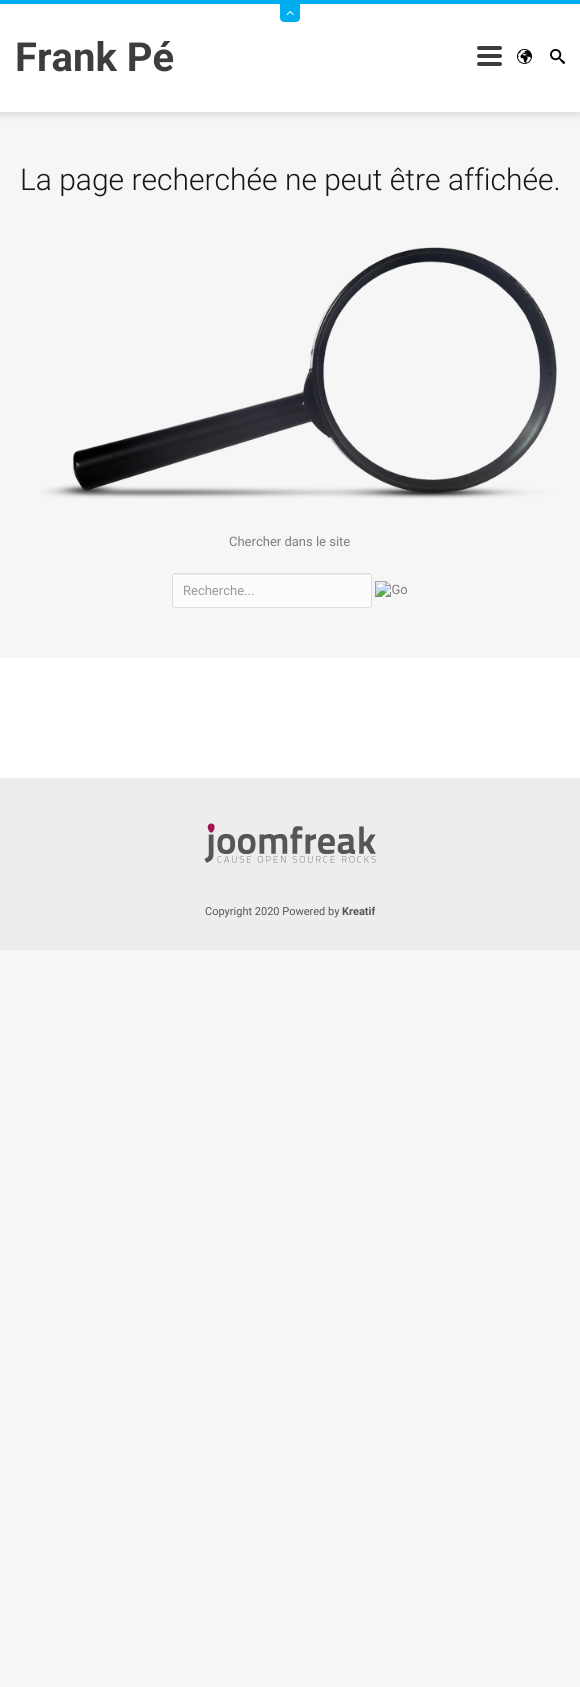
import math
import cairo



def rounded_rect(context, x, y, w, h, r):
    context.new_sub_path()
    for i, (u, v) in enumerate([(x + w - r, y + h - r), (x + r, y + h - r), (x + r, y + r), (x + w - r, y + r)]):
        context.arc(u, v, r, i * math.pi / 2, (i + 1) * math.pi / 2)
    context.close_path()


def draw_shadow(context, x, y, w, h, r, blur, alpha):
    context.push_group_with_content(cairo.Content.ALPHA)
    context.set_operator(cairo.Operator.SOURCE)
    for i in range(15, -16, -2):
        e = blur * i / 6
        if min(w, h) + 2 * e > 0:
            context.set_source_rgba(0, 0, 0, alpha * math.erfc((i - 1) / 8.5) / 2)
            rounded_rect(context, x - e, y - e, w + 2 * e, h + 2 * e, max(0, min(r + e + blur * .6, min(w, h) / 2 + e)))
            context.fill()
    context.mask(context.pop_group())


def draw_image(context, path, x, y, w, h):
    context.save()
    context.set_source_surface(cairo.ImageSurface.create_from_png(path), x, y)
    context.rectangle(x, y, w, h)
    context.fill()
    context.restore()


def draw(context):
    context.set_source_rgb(246 / 255, 246 / 255, 246 / 255)
    context.paint()
    context.set_source_rgb(0, 0, 0)
    draw_shadow(context, 0, 0, 580, 112, 0, 5, 0.2)
    context.set_source_rgb(1, 1, 1)
    context.rectangle(0, 4, 580, 108)
    context.fill()
    context.set_source_rgb(0, 174 / 255, 239 / 255)
    context.rectangle(0, 0, 580, 4)
    context.fill()
    context.new_path()
    context.move_to(280, 4)
    context.line_to(300, 4)
    context.line_to(300, 18)
    context.curve_to(300, 20, 298, 22, 296, 22)
    context.line_to(284, 22)
    context.curve_to(282, 22, 280, 20, 280, 18)
    context.close_path()
    context.fill()
    draw_image(context, "images/1.png", 286, 10, 8, 6)
    context.set_source_rgb(61 / 255, 61 / 255, 61 / 255)
    rounded_rect(context, 477, 62, 25, 4, 2)
    context.fill()
    rounded_rect(context, 477, 54, 25, 4, 2)
    context.fill()
    rounded_rect(context, 477, 46, 25, 4, 2)
    context.fill()
    draw_image(context, "images/2.png", 517, 48, 15, 16)
    draw_image(context, "images/3.png", 550, 48, 15, 16)
    draw_image(context, "images/4.png", 41, 247, 516, 252)
    context.set_source_rgb(252 / 255, 252 / 255, 252 / 255)
    rounded_rect(context, 172, 573, 200, 35, 3)
    context.fill()
    context.set_source_rgb(233 / 255, 233 / 255, 233 / 255)
    context.new_path()
    context.move_to(175, 575)
    context.line_to(369, 575)
    context.line_to(371, 576)
    context.line_to(371, 577)
    context.curve_to(371, 576, 371, 574, 369, 574)
    context.line_to(175, 574)
    context.curve_to(173, 574, 173, 576, 173, 577)
    context.curve_to(173, 576, 174, 575, 175, 575)
    context.close_path()
    context.fill()
    rounded_rect(context, 172.5, 573.5, 199, 34, 2.5)
    context.set_source_rgb(221 / 255, 221 / 255, 221 / 255)
    context.set_line_width(1)
    context.stroke()
    draw_image(context, "images/5.png", 375, 581, 33, 16)
    context.set_source_rgb(1, 1, 1)
    context.rectangle(0, 658, 580, 120)
    context.fill()
    context.set_source_rgb(237 / 255, 237 / 255, 237 / 255)
    context.rectangle(0, 778, 580, 172)
    context.fill()
    draw_image(context, "images/6.png", 204, 823, 172, 40)
    context.select_font_face("Roboto", cairo.FontSlant.NORMAL, cairo.FontWeight.BOLD)
    context.set_font_size(40)
    context.set_source_rgb(61 / 255, 61 / 255, 61 / 255)
    context.move_to(15, 71)
    context.show_text("Frank Pé")
    context.select_font_face("Roboto Light")
    context.set_font_size(30)
    context.set_source_rgb(22 / 255, 22 / 255, 22 / 255)
    context.move_to(20, 190)
    context.show_text("La page recherchée ne peut être affichée.")
    context.select_font_face("Roboto")
    context.set_font_size(13)
    context.set_source_rgb(126 / 255, 126 / 255, 126 / 255)
    context.move_to(229, 546)
    context.show_text("Chercher dans le site")
    context.set_source_rgb(153 / 255, 153 / 255, 153 / 255)
    context.move_to(183, 595)
    context.show_text("Recherche...")
    context.set_font_size(11)
    context.set_source_rgb(87 / 255, 86 / 255, 86 / 255)
    context.move_to(205, 915)
    context.show_text("Copyright 2020 Powered by")
    context.select_font_face("Roboto", cairo.FontSlant.NORMAL, cairo.FontWeight.BOLD)
    context.move_to(342, 915)
    context.show_text("Kreatif")


surface = cairo.ImageSurface(cairo.Format.RGB24, 580, 1687)
context = cairo.Context(surface)
options = cairo.FontOptions()
options.set_hint_metrics(cairo.HintMetrics.OFF)
options.set_hint_style(cairo.HintStyle.NONE)
context.set_font_options(options)
context.set_miter_limit(4)
draw(context)
surface.write_to_png("out.png")
